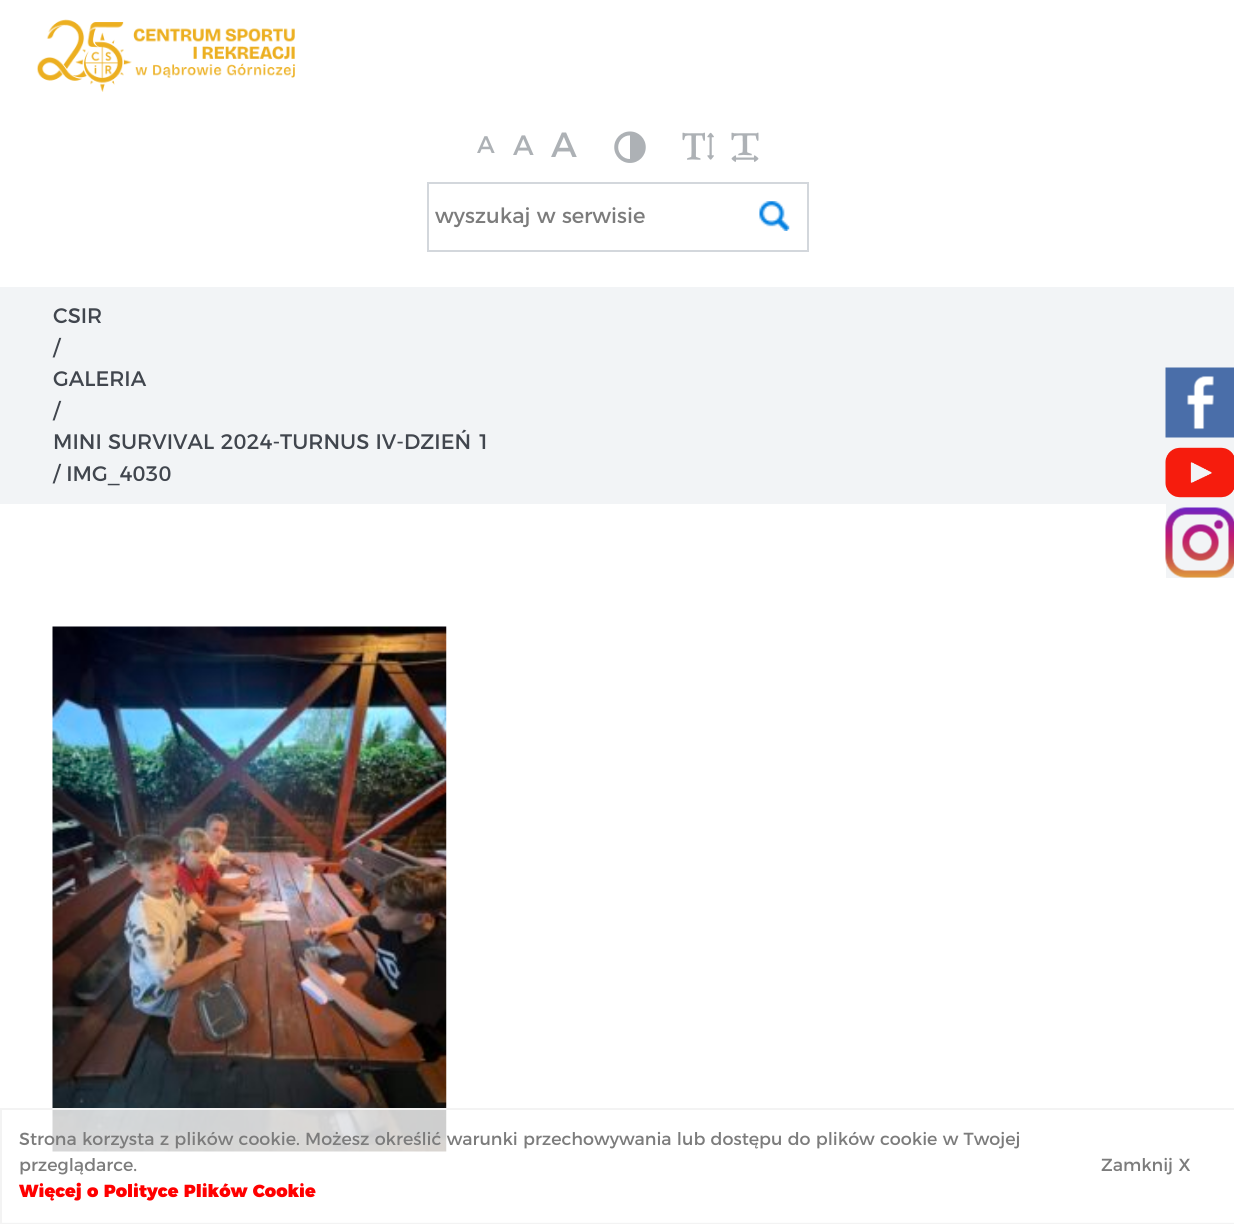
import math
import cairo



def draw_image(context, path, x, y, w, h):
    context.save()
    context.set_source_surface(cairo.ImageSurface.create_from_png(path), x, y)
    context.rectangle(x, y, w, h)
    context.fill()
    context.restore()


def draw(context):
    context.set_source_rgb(1, 1, 1)
    context.paint()
    draw_image(context, "images/1.png", 37, 19, 259, 73)
    draw_image(context, "images/2.png", 614, 131, 32, 32)
    draw_image(context, "images/3.png", 682, 132, 32, 28)
    draw_image(context, "images/4.png", 731, 132, 28, 30)
    draw_image(context, "images/5.png", 759, 201, 31, 30)
    context.rectangle(740, 183, 68, 68)
    context.set_source_rgb(211 / 255, 215 / 255, 220 / 255)
    context.stroke()
    context.set_source_rgb(1, 1, 1)
    context.rectangle(739, 184, 2, 66)
    context.fill()
    context.set_source_rgb(211 / 255, 215 / 255, 220 / 255)
    context.rectangle(427, 182, 315, 2)
    context.fill()
    context.rectangle(427, 250, 315, 2)
    context.fill()
    context.rectangle(427, 182, 2, 70)
    context.fill()
    context.set_source_rgb(242 / 255, 244 / 255, 246 / 255)
    context.rectangle(0, 287, 1234, 217)
    context.fill()
    draw_image(context, "images/6.png", 1165, 367, 69, 71)
    context.rectangle(1166, 504, 68, 74)
    context.fill()
    draw_image(context, "images/7.png", 1165, 447, 69, 51)
    draw_image(context, "images/8.png", 1165, 507, 69, 71)
    draw_image(context, "images/9.png", 52, 626, 395, 526)
    context.rectangle(0, 1222, 1234, 1)
    context.fill()
    context.set_source_rgba(1, 1, 1, 0.8)
    context.rectangle(1, 1109, 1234, 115)
    context.fill_preserve()
    context.set_source_rgb(243 / 255, 243 / 255, 243 / 255)
    context.stroke()
    context.select_font_face("Montserrat")
    context.set_font_size(24)
    context.set_source_rgb(173 / 255, 177 / 255, 181 / 255)
    context.move_to(477, 153)
    context.show_text("A")
    context.set_font_size(28)
    context.move_to(513, 155)
    context.show_text("A")
    context.set_font_size(35)
    context.move_to(551, 157)
    context.show_text("A")
    context.set_font_size(21)
    context.set_source_rgb(124 / 255, 124 / 255, 124 / 255)
    context.move_to(435, 223)
    context.show_text("wyszukaj w serwisie")
    context.set_source_rgb(65 / 255, 70 / 255, 78 / 255)
    context.move_to(53, 323)
    context.show_text("CSIR")
    context.move_to(53, 355)
    context.show_text("/")
    context.move_to(53, 386)
    context.show_text("GALERIA")
    context.move_to(53, 418)
    context.show_text("/")
    context.move_to(53, 449)
    context.show_text("MINI SURVIVAL 2024-TURNUS IV-DZIEŃ 1")
    context.move_to(53, 481)
    context.show_text("/ IMG_4030")
    context.set_font_size(17.5)
    context.set_source_rgb(124 / 255, 124 / 255, 124 / 255)
    context.move_to(19, 1145)
    context.show_text("Strona korzysta z plików cookie. Możesz określić warunki przechowywania lub dostępu do plików cookie w Twojej")
    context.move_to(19, 1171)
    context.show_text("przeglądarce.")
    context.select_font_face("Montserrat Black")
    context.set_source_rgb(1, 0, 0)
    context.move_to(19, 1197)
    context.show_text("Więcej o Polityce Plików Cookie")
    context.select_font_face("Montserrat")
    context.set_source_rgb(124 / 255, 124 / 255, 124 / 255)
    context.move_to(1101, 1171)
    context.show_text("Zamknij X")


surface = cairo.ImageSurface(cairo.Format.RGB24, 1234, 1224)
context = cairo.Context(surface)
options = cairo.FontOptions()
options.set_hint_metrics(cairo.HintMetrics.OFF)
options.set_hint_style(cairo.HintStyle.NONE)
context.set_font_options(options)
context.set_miter_limit(4)
draw(context)
surface.write_to_png("out.png")
